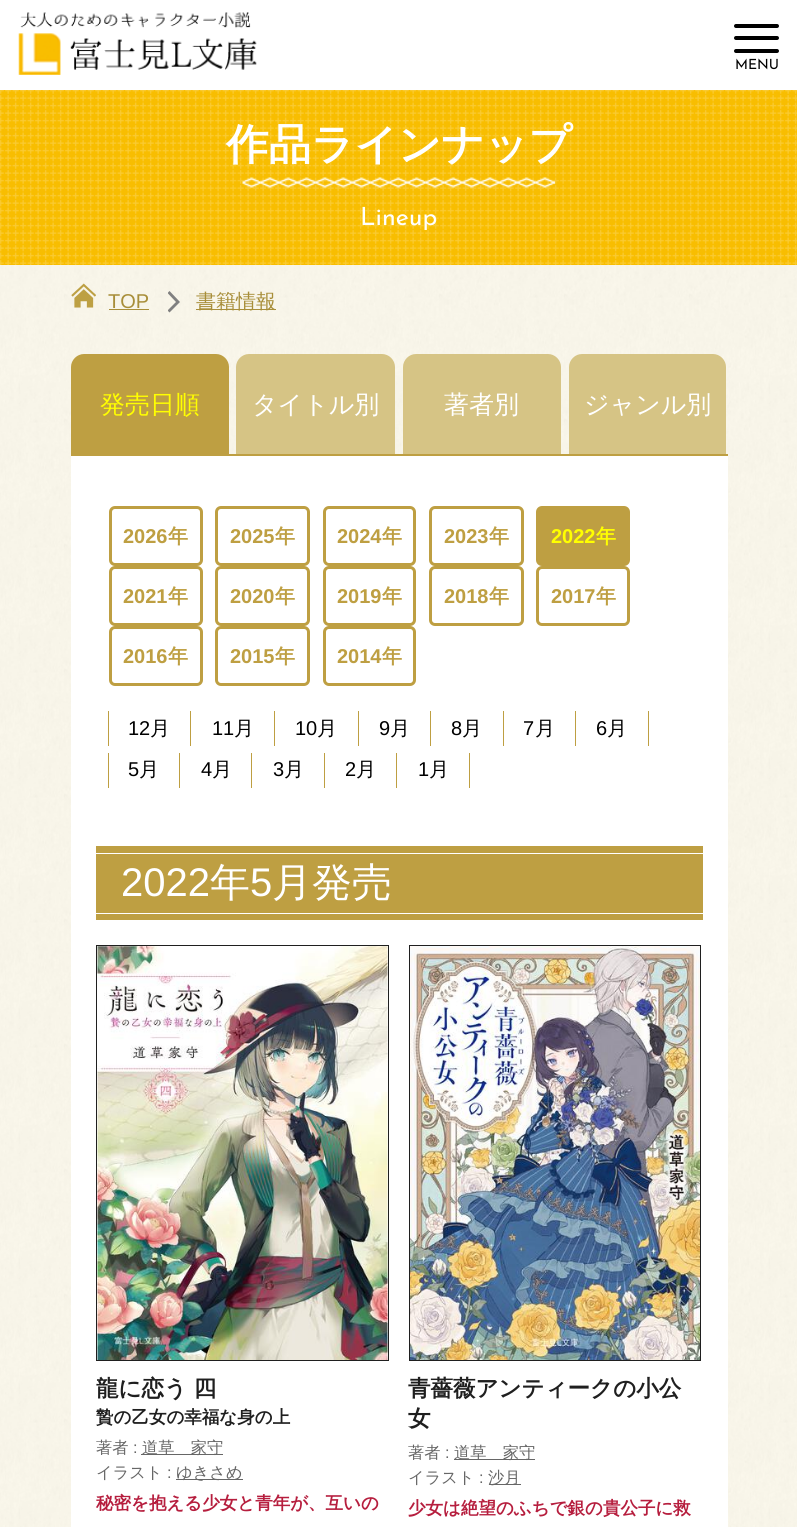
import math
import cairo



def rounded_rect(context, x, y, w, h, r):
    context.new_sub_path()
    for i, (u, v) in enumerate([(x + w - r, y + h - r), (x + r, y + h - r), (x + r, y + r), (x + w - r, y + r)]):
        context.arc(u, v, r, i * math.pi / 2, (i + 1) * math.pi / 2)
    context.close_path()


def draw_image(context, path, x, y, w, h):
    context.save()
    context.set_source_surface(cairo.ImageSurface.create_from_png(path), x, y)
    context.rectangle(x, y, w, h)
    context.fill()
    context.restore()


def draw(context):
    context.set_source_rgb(1, 1, 1)
    context.paint()
    draw_image(context, "images/1.png", 0, 265, 797, 1262)
    draw_image(context, "images/2.png", 18, 12, 239, 63)
    context.set_source_rgb(0, 0, 0)
    rounded_rect(context, 734, 24, 45, 4, 2)
    context.fill()
    rounded_rect(context, 734, 36, 45, 4, 2)
    context.fill()
    rounded_rect(context, 734, 49, 45, 4, 2)
    context.fill()
    draw_image(context, "images/3.png", 0, 90, 797, 175)
    draw_image(context, "images/4.png", 242, 177, 313, 11)
    draw_image(context, "images/5.png", 71, 283, 25, 25)
    context.set_source_rgb(168 / 255, 142 / 255, 57 / 255)
    context.rectangle(109, 309, 40, 1)
    context.fill()
    context.save()
    context.rectangle(168, 291, 12, 22)
    context.clip()
    context.set_source_rgb(128 / 255, 128 / 255, 128 / 255)
    context.set_fill_rule(cairo.FillRule.EVEN_ODD)
    context.new_path()
    context.move_to(167.5, 293)
    context.line_to(169.5, 291)
    context.line_to(180, 302)
    context.line_to(169.5, 312.5)
    context.line_to(167.5, 310.5)
    context.line_to(176, 302)
    context.close_path()
    context.fill()
    context.restore()
    context.rectangle(196, 309, 80, 1)
    context.fill()
    context.set_source_rgb(190 / 255, 159 / 255, 66 / 255)
    context.rectangle(71, 454, 657, 2)
    context.fill()
    context.new_path()
    context.move_to(84, 354)
    context.line_to(216, 354)
    context.curve_to(223, 354, 229, 360, 229, 367)
    context.line_to(229, 454)
    context.line_to(71, 454)
    context.line_to(71, 367)
    context.curve_to(71, 360, 77, 354, 84, 354)
    context.close_path()
    context.fill()
    context.set_source_rgb(214 / 255, 196 / 255, 133 / 255)
    context.new_path()
    context.move_to(249, 354)
    context.line_to(382, 354)
    context.curve_to(389, 354, 395, 360, 395, 367)
    context.line_to(395, 454)
    context.line_to(236, 454)
    context.line_to(236, 367)
    context.curve_to(236, 360, 242, 354, 249, 354)
    context.close_path()
    context.fill()
    context.new_path()
    context.move_to(416, 354)
    context.line_to(548, 354)
    context.curve_to(555, 354, 561, 360, 561, 367)
    context.line_to(561, 454)
    context.line_to(403, 454)
    context.line_to(403, 367)
    context.curve_to(403, 360, 409, 354, 416, 354)
    context.close_path()
    context.fill()
    context.new_path()
    context.move_to(582, 354)
    context.line_to(713, 354)
    context.curve_to(720, 354, 726, 360, 726, 367)
    context.line_to(726, 454)
    context.line_to(569, 454)
    context.line_to(569, 367)
    context.curve_to(569, 360, 575, 354, 582, 354)
    context.close_path()
    context.fill()
    context.set_source_rgb(1, 1, 1)
    context.rectangle(71, 456, 657, 1071)
    context.fill()
    rounded_rect(context, 110.5, 507.5, 91, 57, 4.5)
    context.set_source_rgb(190 / 255, 159 / 255, 66 / 255)
    context.set_line_width(3)
    context.stroke()
    rounded_rect(context, 216.5, 507.5, 92, 57, 4.5)
    context.stroke()
    rounded_rect(context, 324.5, 507.5, 90, 57, 4.5)
    context.stroke()
    rounded_rect(context, 430.5, 507.5, 92, 57, 4.5)
    context.stroke()
    rounded_rect(context, 537.5, 507.5, 91, 57, 4.5)
    context.fill_preserve()
    context.stroke()
    rounded_rect(context, 110.5, 567.5, 91, 57, 4.5)
    context.stroke()
    rounded_rect(context, 216.5, 567.5, 92, 57, 4.5)
    context.stroke()
    rounded_rect(context, 324.5, 567.5, 90, 57, 4.5)
    context.stroke()
    rounded_rect(context, 430.5, 567.5, 92, 57, 4.5)
    context.stroke()
    rounded_rect(context, 537.5, 567.5, 91, 57, 4.5)
    context.stroke()
    rounded_rect(context, 110.5, 627.5, 91, 57, 4.5)
    context.stroke()
    rounded_rect(context, 216.5, 627.5, 92, 57, 4.5)
    context.stroke()
    rounded_rect(context, 324.5, 627.5, 90, 57, 4.5)
    context.stroke()
    context.rectangle(190, 711, 1, 35)
    context.fill()
    context.rectangle(108, 711, 1, 35)
    context.fill()
    context.rectangle(274, 711, 1, 35)
    context.fill()
    context.rectangle(358, 711, 1, 35)
    context.fill()
    context.rectangle(430, 711, 1, 35)
    context.fill()
    context.rectangle(503, 711, 1, 35)
    context.fill()
    context.rectangle(575, 711, 1, 35)
    context.fill()
    context.rectangle(648, 711, 1, 35)
    context.fill()
    context.rectangle(179, 753, 1, 35)
    context.fill()
    context.rectangle(108, 753, 1, 35)
    context.fill()
    context.rectangle(251, 753, 1, 35)
    context.fill()
    context.rectangle(324, 753, 1, 35)
    context.fill()
    context.rectangle(396, 753, 1, 35)
    context.fill()
    context.rectangle(469, 753, 1, 35)
    context.fill()
    context.rectangle(96, 846, 607, 74)
    context.fill()
    context.set_source_rgb(1, 1, 1)
    context.rectangle(96, 853, 607, 1)
    context.fill()
    context.rectangle(96, 913, 607, 1)
    context.fill()
    context.rectangle(96.5, 945.5, 292, 415)
    context.set_source_rgb(31 / 255, 31 / 255, 31 / 255)
    context.set_line_width(1)
    context.stroke()
    draw_image(context, "images/6.png", 97, 946, 291, 414)
    context.set_source_rgb(102 / 255, 102 / 255, 102 / 255)
    context.rectangle(141, 1454, 82, 1)
    context.fill()
    context.rectangle(176, 1479, 67, 1)
    context.fill()
    context.rectangle(409.5, 945.5, 291, 415)
    context.set_source_rgb(31 / 255, 31 / 255, 31 / 255)
    context.stroke()
    draw_image(context, "images/7.png", 410, 946, 290, 414)
    context.set_source_rgb(102 / 255, 102 / 255, 102 / 255)
    context.rectangle(454, 1459, 81, 1)
    context.fill()
    context.rectangle(489, 1484, 32, 1)
    context.fill()
    context.select_font_face("Josefin Sans Thin")
    context.set_font_size(14)
    context.set_source_rgb(0, 0, 0)
    context.move_to(735, 69)
    context.show_text("MENU")
    context.select_font_face("WenQuanYi Zen Hei", cairo.FontSlant.NORMAL, cairo.FontWeight.BOLD)
    context.set_font_size(42.5)
    context.set_source_rgb(1, 1, 1)
    context.move_to(226, 159)
    context.show_text("作品ラインナップ")
    context.select_font_face("Josefin Sans Thin")
    context.set_font_size(25)
    context.move_to(360, 225)
    context.show_text("Lineup")
    context.select_font_face("Liberation Sans")
    context.set_font_size(20)
    context.set_source_rgb(168 / 255, 142 / 255, 57 / 255)
    context.move_to(108, 308)
    context.show_text("TOP")
    context.select_font_face("WenQuanYi Zen Hei Medium")
    context.move_to(196, 308)
    context.show_text("書籍情報")
    context.set_font_size(25)
    context.set_source_rgb(1, 1, 0)
    context.move_to(100, 413)
    context.show_text("発売日順")
    context.set_source_rgb(1, 1, 1)
    context.move_to(252, 413)
    context.show_text("タイトル別")
    context.move_to(444, 413)
    context.show_text("著者別")
    context.move_to(584, 413)
    context.show_text("ジャンル別")
    context.select_font_face("Liberation Sans", cairo.FontSlant.NORMAL, cairo.FontWeight.BOLD)
    context.set_font_size(20)
    context.set_source_rgb(190 / 255, 159 / 255, 66 / 255)
    context.move_to(123, 543)
    context.show_text("2026")
    context.select_font_face("WenQuanYi Zen Hei", cairo.FontSlant.NORMAL, cairo.FontWeight.BOLD)
    context.move_to(168, 543)
    context.show_text("年")
    context.select_font_face("Liberation Sans", cairo.FontSlant.NORMAL, cairo.FontWeight.BOLD)
    context.move_to(230, 543)
    context.show_text("2025")
    context.select_font_face("WenQuanYi Zen Hei", cairo.FontSlant.NORMAL, cairo.FontWeight.BOLD)
    context.move_to(275, 543)
    context.show_text("年")
    context.select_font_face("Liberation Sans", cairo.FontSlant.NORMAL, cairo.FontWeight.BOLD)
    context.move_to(337, 543)
    context.show_text("2024")
    context.select_font_face("WenQuanYi Zen Hei", cairo.FontSlant.NORMAL, cairo.FontWeight.BOLD)
    context.move_to(382, 543)
    context.show_text("年")
    context.select_font_face("Liberation Sans", cairo.FontSlant.NORMAL, cairo.FontWeight.BOLD)
    context.move_to(444, 543)
    context.show_text("2023")
    context.select_font_face("WenQuanYi Zen Hei", cairo.FontSlant.NORMAL, cairo.FontWeight.BOLD)
    context.move_to(489, 543)
    context.show_text("年")
    context.select_font_face("Liberation Sans", cairo.FontSlant.NORMAL, cairo.FontWeight.BOLD)
    context.set_source_rgb(1, 1, 0)
    context.move_to(551, 543)
    context.show_text("2022")
    context.select_font_face("WenQuanYi Zen Hei", cairo.FontSlant.NORMAL, cairo.FontWeight.BOLD)
    context.move_to(596, 543)
    context.show_text("年")
    context.select_font_face("Liberation Sans", cairo.FontSlant.NORMAL, cairo.FontWeight.BOLD)
    context.set_source_rgb(190 / 255, 159 / 255, 66 / 255)
    context.move_to(123, 603)
    context.show_text("2021")
    context.select_font_face("WenQuanYi Zen Hei", cairo.FontSlant.NORMAL, cairo.FontWeight.BOLD)
    context.move_to(168, 603)
    context.show_text("年")
    context.select_font_face("Liberation Sans", cairo.FontSlant.NORMAL, cairo.FontWeight.BOLD)
    context.move_to(230, 603)
    context.show_text("2020")
    context.select_font_face("WenQuanYi Zen Hei", cairo.FontSlant.NORMAL, cairo.FontWeight.BOLD)
    context.move_to(275, 603)
    context.show_text("年")
    context.select_font_face("Liberation Sans", cairo.FontSlant.NORMAL, cairo.FontWeight.BOLD)
    context.move_to(337, 603)
    context.show_text("2019")
    context.select_font_face("WenQuanYi Zen Hei", cairo.FontSlant.NORMAL, cairo.FontWeight.BOLD)
    context.move_to(382, 603)
    context.show_text("年")
    context.select_font_face("Liberation Sans", cairo.FontSlant.NORMAL, cairo.FontWeight.BOLD)
    context.move_to(444, 603)
    context.show_text("2018")
    context.select_font_face("WenQuanYi Zen Hei", cairo.FontSlant.NORMAL, cairo.FontWeight.BOLD)
    context.move_to(489, 603)
    context.show_text("年")
    context.select_font_face("Liberation Sans", cairo.FontSlant.NORMAL, cairo.FontWeight.BOLD)
    context.move_to(551, 603)
    context.show_text("2017")
    context.select_font_face("WenQuanYi Zen Hei", cairo.FontSlant.NORMAL, cairo.FontWeight.BOLD)
    context.move_to(596, 603)
    context.show_text("年")
    context.select_font_face("Liberation Sans", cairo.FontSlant.NORMAL, cairo.FontWeight.BOLD)
    context.move_to(123, 663)
    context.show_text("2016")
    context.select_font_face("WenQuanYi Zen Hei", cairo.FontSlant.NORMAL, cairo.FontWeight.BOLD)
    context.move_to(168, 663)
    context.show_text("年")
    context.select_font_face("Liberation Sans", cairo.FontSlant.NORMAL, cairo.FontWeight.BOLD)
    context.move_to(230, 663)
    context.show_text("2015")
    context.select_font_face("WenQuanYi Zen Hei", cairo.FontSlant.NORMAL, cairo.FontWeight.BOLD)
    context.move_to(275, 663)
    context.show_text("年")
    context.select_font_face("Liberation Sans", cairo.FontSlant.NORMAL, cairo.FontWeight.BOLD)
    context.move_to(337, 663)
    context.show_text("2014")
    context.select_font_face("WenQuanYi Zen Hei", cairo.FontSlant.NORMAL, cairo.FontWeight.BOLD)
    context.move_to(382, 663)
    context.show_text("年")
    context.select_font_face("Liberation Sans")
    context.set_source_rgb(0, 0, 0)
    context.move_to(128, 735)
    context.show_text("12")
    context.select_font_face("WenQuanYi Zen Hei Medium")
    context.move_to(150, 735)
    context.show_text("月")
    context.select_font_face("Liberation Sans")
    context.move_to(212, 735)
    context.show_text("11")
    context.select_font_face("WenQuanYi Zen Hei Medium")
    context.move_to(234, 735)
    context.show_text("月")
    context.select_font_face("Liberation Sans")
    context.move_to(295, 735)
    context.show_text("10")
    context.select_font_face("WenQuanYi Zen Hei Medium")
    context.move_to(317, 735)
    context.show_text("月")
    context.select_font_face("Liberation Sans")
    context.move_to(379, 735)
    context.show_text("9")
    context.select_font_face("WenQuanYi Zen Hei Medium")
    context.move_to(390, 735)
    context.show_text("月")
    context.select_font_face("Liberation Sans")
    context.move_to(451, 735)
    context.show_text("8")
    context.select_font_face("WenQuanYi Zen Hei Medium")
    context.move_to(462, 735)
    context.show_text("月")
    context.select_font_face("Liberation Sans")
    context.move_to(523, 735)
    context.show_text("7")
    context.select_font_face("WenQuanYi Zen Hei Medium")
    context.move_to(535, 735)
    context.show_text("月")
    context.select_font_face("Liberation Sans")
    context.move_to(596, 735)
    context.show_text("6")
    context.select_font_face("WenQuanYi Zen Hei Medium")
    context.move_to(607, 735)
    context.show_text("月")
    context.select_font_face("Liberation Sans")
    context.move_to(128, 776)
    context.show_text("5")
    context.select_font_face("WenQuanYi Zen Hei Medium")
    context.move_to(139, 776)
    context.show_text("月")
    context.select_font_face("Liberation Sans")
    context.move_to(201, 776)
    context.show_text("4")
    context.select_font_face("WenQuanYi Zen Hei Medium")
    context.move_to(212, 776)
    context.show_text("月")
    context.select_font_face("Liberation Sans")
    context.move_to(273, 776)
    context.show_text("3")
    context.select_font_face("WenQuanYi Zen Hei Medium")
    context.move_to(284, 776)
    context.show_text("月")
    context.select_font_face("Liberation Sans")
    context.move_to(345, 776)
    context.show_text("2")
    context.select_font_face("WenQuanYi Zen Hei Medium")
    context.move_to(356, 776)
    context.show_text("月")
    context.select_font_face("Liberation Sans")
    context.move_to(418, 776)
    context.show_text("1")
    context.select_font_face("WenQuanYi Zen Hei Medium")
    context.move_to(429, 776)
    context.show_text("月")
    context.select_font_face("Liberation Sans")
    context.set_font_size(40)
    context.set_source_rgb(1, 1, 1)
    context.move_to(121, 896)
    context.show_text("2022")
    context.select_font_face("WenQuanYi Zen Hei Medium")
    context.move_to(210, 896)
    context.show_text("年")
    context.select_font_face("Liberation Sans")
    context.move_to(250, 896)
    context.show_text("5")
    context.select_font_face("WenQuanYi Zen Hei Medium")
    context.move_to(272, 896)
    context.show_text("月発売")
    context.select_font_face("WenQuanYi Zen Hei", cairo.FontSlant.NORMAL, cairo.FontWeight.BOLD)
    context.set_font_size(22.5)
    context.set_source_rgb(31 / 255, 31 / 255, 31 / 255)
    context.move_to(96, 1396)
    context.show_text("龍に恋う 四")
    context.set_font_size(17.5)
    context.move_to(96, 1423)
    context.show_text("贄の乙女の幸福な身の上")
    context.select_font_face("WenQuanYi Zen Hei Medium")
    context.set_font_size(16.25)
    context.set_source_rgb(102 / 255, 102 / 255, 102 / 255)
    context.move_to(96, 1453)
    context.show_text("著者")
    context.select_font_face("Liberation Sans")
    context.move_to(133, 1453)
    context.show_text(":")
    context.select_font_face("WenQuanYi Zen Hei Medium")
    context.move_to(142, 1453)
    context.show_text("道草　家守")
    context.move_to(96, 1478)
    context.show_text("イラスト")
    context.select_font_face("Liberation Sans")
    context.move_to(167, 1478)
    context.show_text(":")
    context.select_font_face("WenQuanYi Zen Hei Medium")
    context.move_to(176, 1478)
    context.show_text("ゆきさめ")
    context.select_font_face("WenQuanYi Zen Hei", cairo.FontSlant.NORMAL, cairo.FontWeight.BOLD)
    context.set_font_size(17.5)
    context.set_source_rgb(182 / 255, 30 / 255, 62 / 255)
    context.move_to(96, 1509)
    context.show_text("秘密を抱える少女と青年が、互いの")
    context.set_font_size(22.5)
    context.set_source_rgb(31 / 255, 31 / 255, 31 / 255)
    context.move_to(408, 1396)
    context.show_text("青薔薇アンティークの小公")
    context.move_to(408, 1426)
    context.show_text("女")
    context.select_font_face("WenQuanYi Zen Hei Medium")
    context.set_font_size(16.25)
    context.set_source_rgb(102 / 255, 102 / 255, 102 / 255)
    context.move_to(408, 1458)
    context.show_text("著者")
    context.select_font_face("Liberation Sans")
    context.move_to(445, 1458)
    context.show_text(":")
    context.select_font_face("WenQuanYi Zen Hei Medium")
    context.move_to(454, 1458)
    context.show_text("道草　家守")
    context.move_to(408, 1483)
    context.show_text("イラスト")
    context.select_font_face("Liberation Sans")
    context.move_to(479, 1483)
    context.show_text(":")
    context.select_font_face("WenQuanYi Zen Hei Medium")
    context.move_to(488, 1483)
    context.show_text("沙月")
    context.select_font_face("WenQuanYi Zen Hei", cairo.FontSlant.NORMAL, cairo.FontWeight.BOLD)
    context.set_font_size(17.5)
    context.set_source_rgb(182 / 255, 30 / 255, 62 / 255)
    context.move_to(408, 1514)
    context.show_text("少女は絶望のふちで銀の貴公子に救")


surface = cairo.ImageSurface(cairo.Format.RGB24, 797, 1527)
context = cairo.Context(surface)
options = cairo.FontOptions()
options.set_hint_metrics(cairo.HintMetrics.OFF)
options.set_hint_style(cairo.HintStyle.NONE)
context.set_font_options(options)
context.set_miter_limit(4)
draw(context)
surface.write_to_png("out.png")
